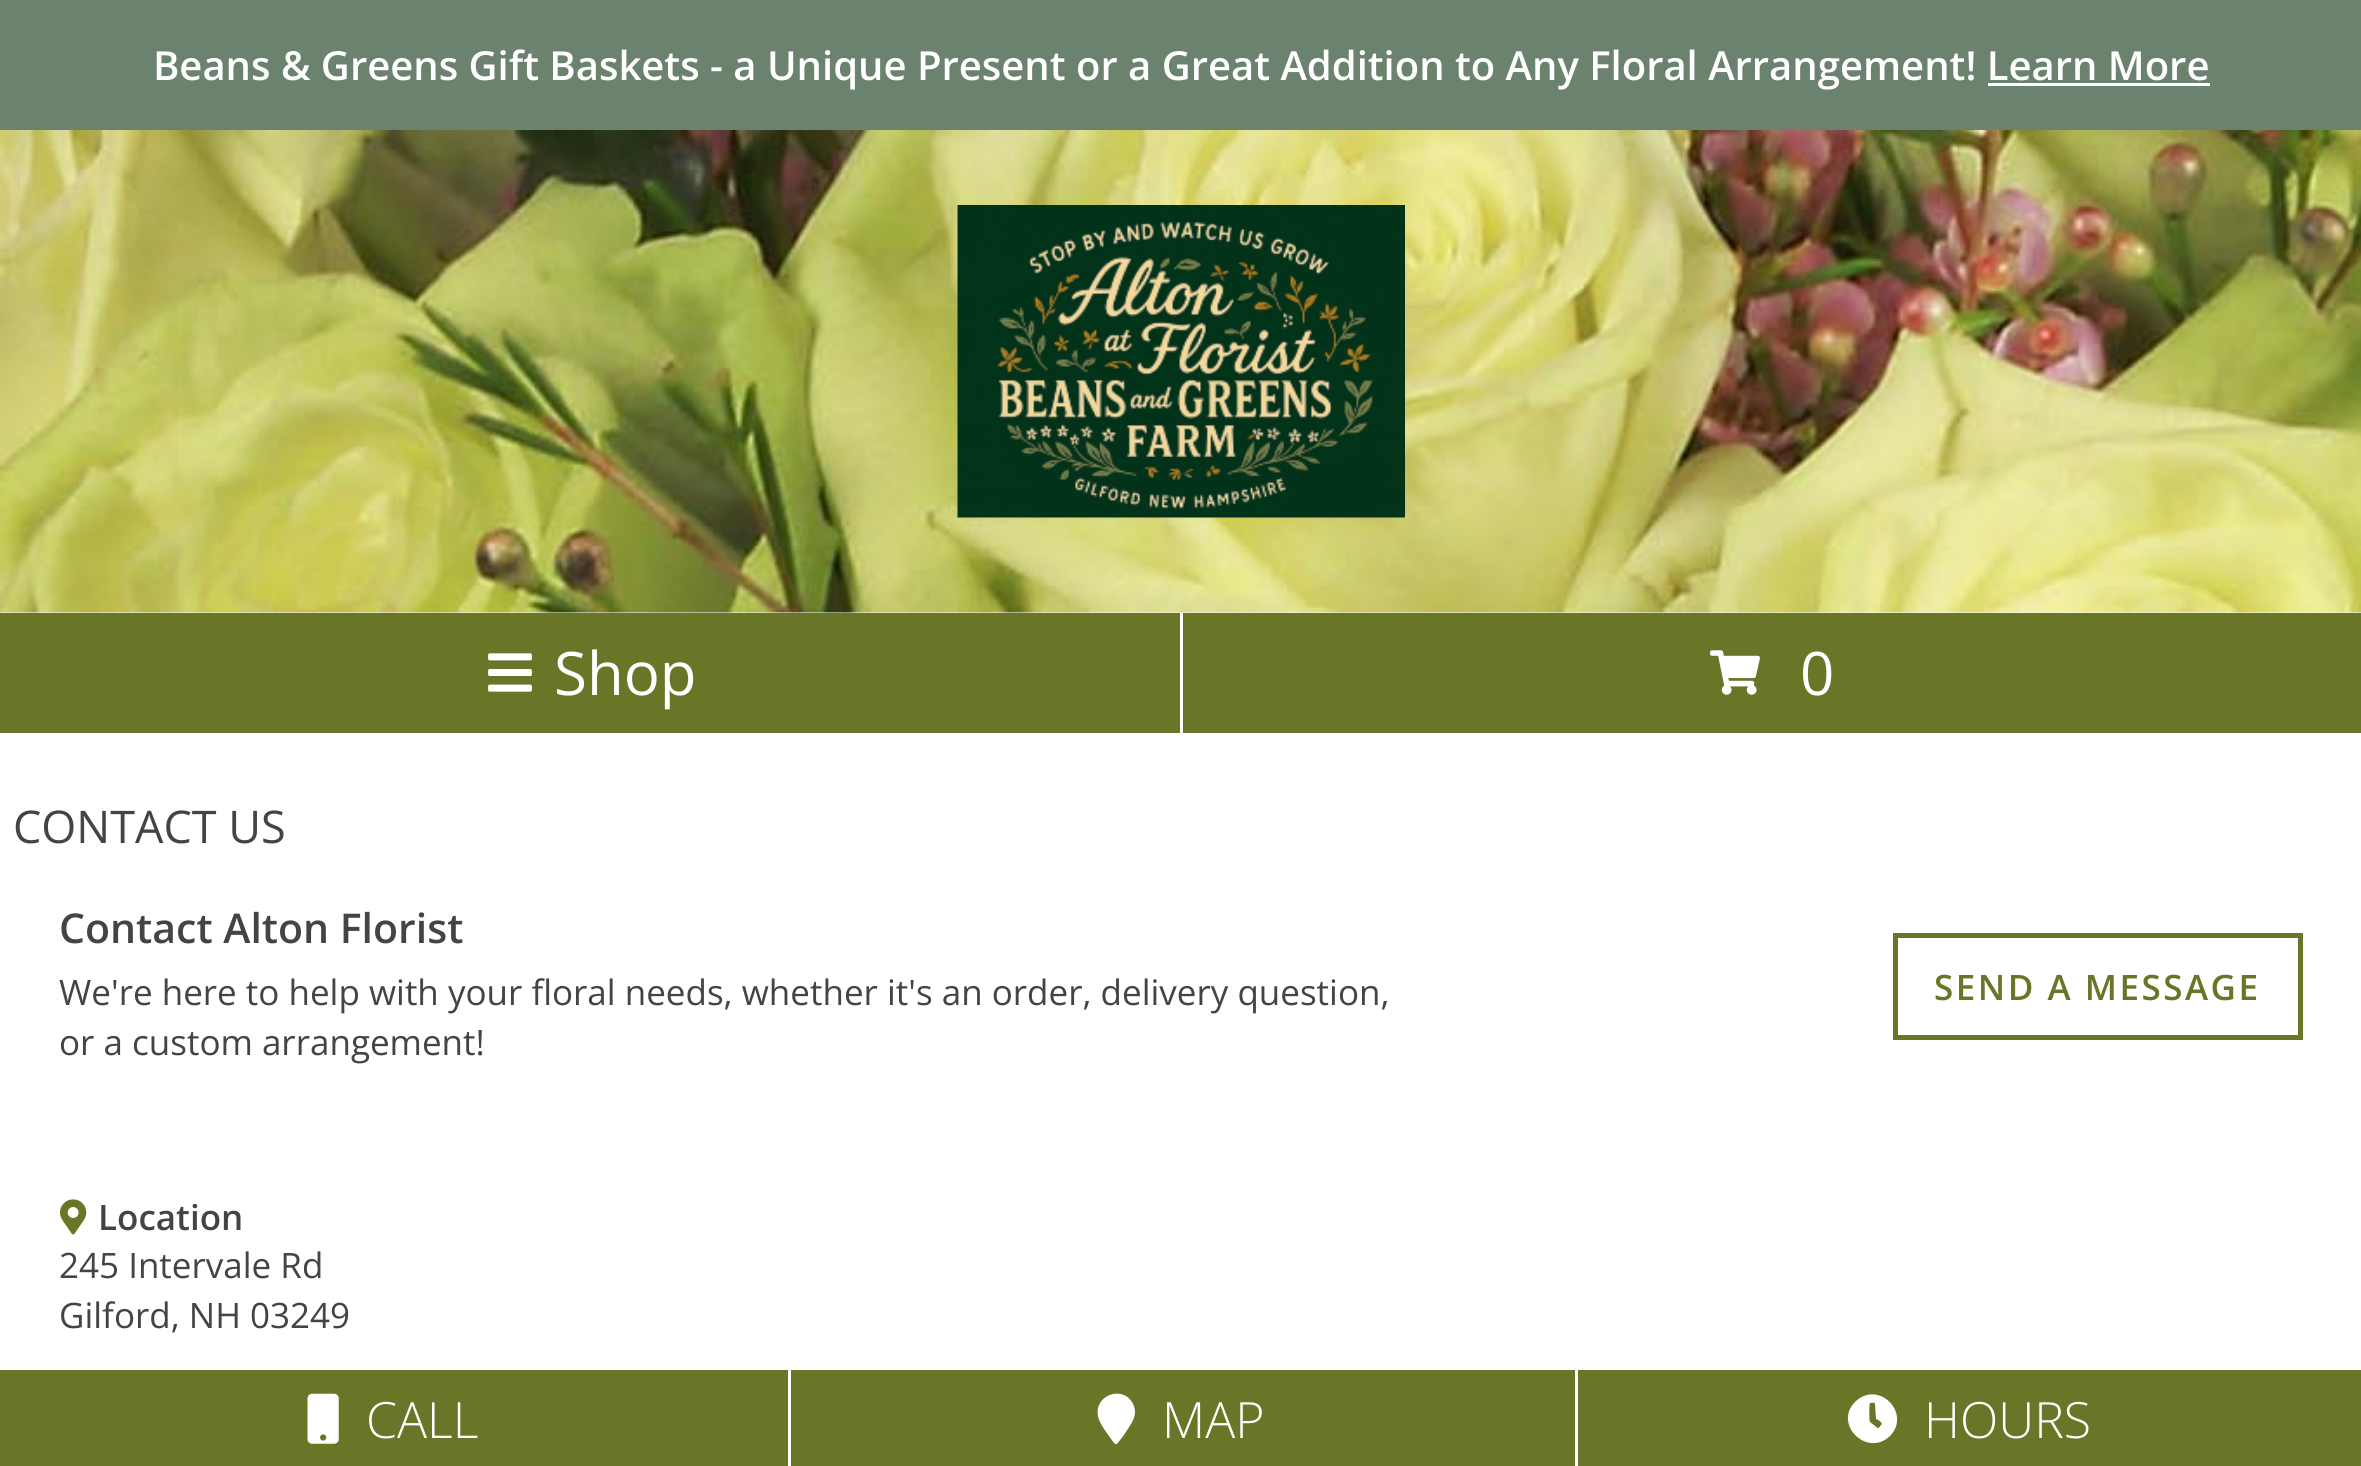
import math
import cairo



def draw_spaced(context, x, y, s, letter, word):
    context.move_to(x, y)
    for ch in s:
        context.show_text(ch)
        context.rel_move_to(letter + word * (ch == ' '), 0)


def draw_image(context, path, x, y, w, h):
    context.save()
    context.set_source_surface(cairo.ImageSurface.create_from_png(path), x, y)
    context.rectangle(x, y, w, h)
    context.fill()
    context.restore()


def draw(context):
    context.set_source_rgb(1, 1, 1)
    context.paint()
    context.set_source_rgb(107 / 255, 130 / 255, 110 / 255)
    context.rectangle(0, 0, 2361, 130)
    context.fill()
    context.set_source_rgb(1, 1, 1)
    context.rectangle(1988, 83, 222, 3)
    context.fill()
    draw_image(context, "images/1.png", 0, 130, 2361, 483)
    draw_image(context, "images/2.png", 957, 205, 448, 313)
    context.set_source_rgb(105 / 255, 118 / 255, 40 / 255)
    context.rectangle(0, 613, 1180, 120)
    context.fill()
    draw_image(context, "images/3.png", 488, 653, 44, 39)
    context.rectangle(1183, 613, 1178, 120)
    context.fill()
    draw_image(context, "images/4.png", 1710, 650, 50, 45)
    context.rectangle(1895.5, 935.5, 405, 102)
    context.set_line_width(5)
    context.stroke()
    draw_image(context, "images/5.png", 60, 1199, 27, 36)
    context.rectangle(0, 1370, 788, 96)
    context.fill()
    draw_image(context, "images/6.png", 307, 1393, 32, 51)
    context.rectangle(791, 1370, 784, 96)
    context.fill()
    context.set_source_rgb(1, 1, 1)
    context.new_path()
    context.move_to(1114, 1443)
    context.curve_to(1110, 1437, 1099, 1424, 1098, 1416)
    context.curve_to(1094, 1396, 1121, 1385, 1132, 1402)
    context.curve_to(1140, 1415, 1130, 1425, 1124, 1435)
    context.line_to(1117, 1444)
    context.curve_to(1116, 1444, 1115, 1444, 1114, 1443)
    context.close_path()
    context.fill()
    context.set_source_rgb(105 / 255, 118 / 255, 40 / 255)
    context.rectangle(1578, 1370, 783, 96)
    context.fill()
    context.set_source_rgb(1, 1, 1)
    context.new_path()
    context.move_to(1855, 1402)
    context.curve_to(1878, 1379, 1912, 1413, 1890, 1436)
    context.curve_to(1867, 1458, 1833, 1424, 1855, 1402)
    context.close_path()
    context.move_to(1881, 1425)
    context.curve_to(1884, 1423, 1877, 1419, 1876, 1419)
    context.line_to(1875, 1404)
    context.curve_to(1875, 1402, 1871, 1403, 1870, 1403)
    context.curve_to(1869, 1404, 1869, 1420, 1870, 1422)
    context.line_to(1875, 1426)
    context.curve_to(1879, 1429, 1878, 1429, 1881, 1425)
    context.close_path()
    context.fill()
    context.select_font_face("Open Sans SemiBold")
    context.set_font_size(40)
    context.move_to(153, 80)
    context.show_text("Beans & Greens Gift Baskets - a Unique Present or a Great Addition to Any Floral Arrangement! Learn More")
    context.select_font_face("Open Sans")
    context.set_font_size(60)
    context.move_to(554, 695)
    context.show_text("Shop")
    context.move_to(1800, 695)
    context.show_text("0")
    context.set_font_size(45)
    context.set_source_rgb(68 / 255, 68 / 255, 68 / 255)
    context.move_to(13, 843)
    context.show_text("CONTACT US")
    context.select_font_face("Open Sans SemiBold")
    context.set_font_size(41)
    context.move_to(59, 943)
    context.show_text("Contact Alton Florist")
    context.select_font_face("Open Sans")
    context.set_font_size(35)
    context.move_to(59, 1005)
    context.show_text("We're here to help with your floral needs, whether it's an order, delivery question,")
    context.move_to(59, 1055)
    context.show_text("or a custom arrangement!")
    context.select_font_face("Open Sans SemiBold")
    context.set_source_rgb(105 / 255, 118 / 255, 40 / 255)
    draw_spaced(context, 1934, 1000, "SEND A MESSAGE", 2.5, 0)
    context.set_source_rgb(68 / 255, 68 / 255, 68 / 255)
    context.move_to(98, 1230)
    context.show_text("Location")
    context.select_font_face("Open Sans")
    context.move_to(59, 1278)
    context.show_text("245 Intervale Rd")
    context.move_to(59, 1328)
    context.show_text("Gilford, NH 03249")
    context.select_font_face("Open Sans Light")
    context.set_font_size(50)
    context.set_source_rgb(1, 1, 1)
    context.move_to(366, 1438)
    context.show_text("CALL")
    context.move_to(1162, 1438)
    context.show_text("MAP")
    context.move_to(1924, 1438)
    context.show_text("HOURS")


surface = cairo.ImageSurface(cairo.Format.RGB24, 2361, 1466)
context = cairo.Context(surface)
options = cairo.FontOptions()
options.set_hint_metrics(cairo.HintMetrics.OFF)
options.set_hint_style(cairo.HintStyle.NONE)
context.set_font_options(options)
context.set_miter_limit(4)
draw(context)
surface.write_to_png("out.png")
